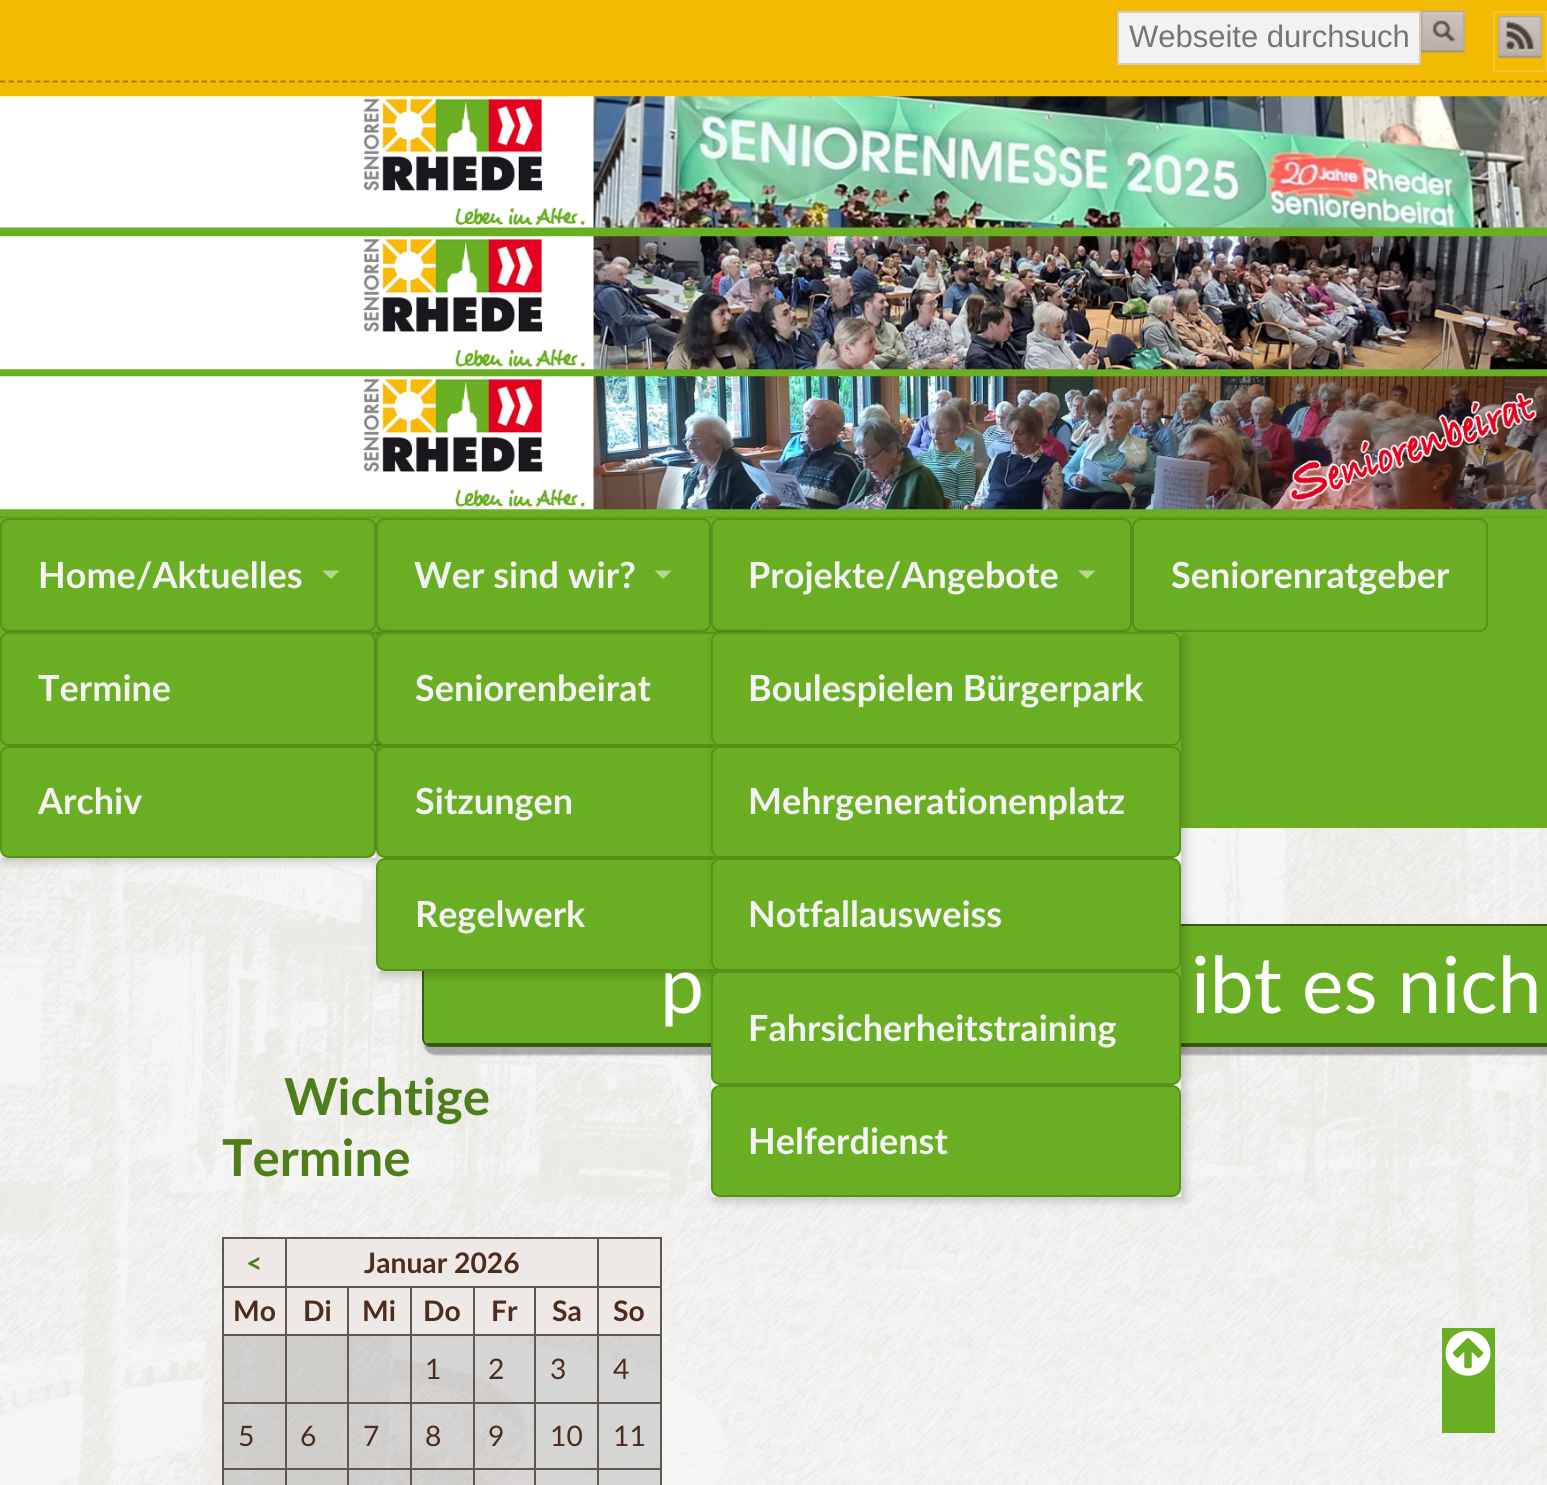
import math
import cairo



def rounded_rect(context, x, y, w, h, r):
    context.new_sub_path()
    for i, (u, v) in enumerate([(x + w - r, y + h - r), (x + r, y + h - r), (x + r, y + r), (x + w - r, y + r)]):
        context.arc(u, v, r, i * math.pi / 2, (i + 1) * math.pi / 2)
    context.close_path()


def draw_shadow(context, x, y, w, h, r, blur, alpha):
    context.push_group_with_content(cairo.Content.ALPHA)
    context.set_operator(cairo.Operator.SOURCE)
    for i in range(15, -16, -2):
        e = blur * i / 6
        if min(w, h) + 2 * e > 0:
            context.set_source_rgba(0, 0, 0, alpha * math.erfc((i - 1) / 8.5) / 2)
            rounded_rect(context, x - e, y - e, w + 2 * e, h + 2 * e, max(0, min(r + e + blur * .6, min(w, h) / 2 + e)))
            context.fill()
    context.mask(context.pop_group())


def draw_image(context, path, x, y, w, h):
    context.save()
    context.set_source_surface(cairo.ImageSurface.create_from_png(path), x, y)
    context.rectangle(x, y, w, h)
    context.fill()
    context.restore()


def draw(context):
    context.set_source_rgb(1, 1, 1)
    context.paint()
    draw_image(context, "images/1.png", 0, 828, 1547, 657)
    context.set_source_rgb(106 / 255, 174 / 255, 35 / 255)
    context.rectangle(0, 227, 1547, 601)
    context.fill()
    context.set_source_rgb(243 / 255, 186 / 255, 2 / 255)
    context.rectangle(0, 0, 1547, 97)
    context.fill()
    context.new_path()
    context.move_to(0, 81.5)
    context.line_to(1547, 81.5)
    context.set_source_rgb(160 / 255, 115 / 255, 16 / 255)
    context.set_line_width(1.8)
    context.set_dash([5.25, 3.52])
    context.stroke()
    context.set_source_rgb(244 / 255, 242 / 255, 240 / 255)
    context.rectangle(1118, 12, 302, 52)
    context.fill_preserve()
    context.set_source_rgb(212 / 255, 203 / 255, 197 / 255)
    context.set_line_width(2)
    context.set_dash([])
    context.stroke()
    draw_image(context, "images/2.png", 1421, 10, 44, 43)
    context.rectangle(1494, 12, 52, 59)
    context.set_source_rgb(243 / 255, 197 / 255, 50 / 255)
    context.stroke()
    draw_image(context, "images/3.png", 1498, 15, 44, 43)
    draw_image(context, "images/4.png", 0, 96, 1547, 132)
    draw_image(context, "images/5.png", 0, 236, 1547, 134)
    draw_image(context, "images/6.png", 0, 376, 1547, 134)
    context.new_path()
    context.move_to(0, 517)
    context.line_to(1547, 517)
    context.set_source_rgb(97 / 255, 148 / 255, 30 / 255)
    context.set_line_width(1.8)
    context.set_dash([1.75, 1.75])
    context.stroke()
    rounded_rect(context, 1, 519, 374, 112, 8)
    context.set_source_rgb(86 / 255, 146 / 255, 25 / 255)
    context.set_line_width(2)
    context.set_dash([])
    context.stroke()
    context.set_source_rgb(181 / 255, 215 / 255, 145 / 255)
    context.new_path()
    context.move_to(322, 570.5)
    context.line_to(339.5, 570.5)
    context.line_to(331, 579)
    context.close_path()
    context.fill()
    rounded_rect(context, 377, 519, 333, 112, 8)
    context.set_source_rgb(86 / 255, 146 / 255, 25 / 255)
    context.stroke()
    rounded_rect(context, 1, 633, 339, 112, 8)
    context.stroke()
    context.rectangle(342, 633, 271, 112)
    context.stroke()
    context.set_source_rgba(242 / 255, 242 / 255, 242 / 255, 0.7)
    context.rectangle(0, 828, 1547, 657)
    context.fill()
    context.save()
    context.set_fill_rule(cairo.FillRule.EVEN_ODD)
    context.new_path()
    context.move_to(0, 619)
    context.line_to(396, 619)
    context.line_to(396, 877)
    context.line_to(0, 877)
    context.close_path()
    context.move_to(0, 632)
    context.line_to(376, 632)
    context.line_to(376, 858)
    context.line_to(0, 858)
    context.close_path()
    context.clip()
    context.set_source_rgb(0, 0, 0)
    draw_shadow(context, 4, 635, 376, 226, 0, 5, 0.2)
    context.restore()
    context.set_source_rgb(106 / 255, 175 / 255, 35 / 255)
    rounded_rect(context, 1, 633, 374, 112, 8)
    context.fill_preserve()
    context.set_source_rgb(86 / 255, 146 / 255, 25 / 255)
    context.stroke()
    context.set_source_rgb(106 / 255, 175 / 255, 35 / 255)
    rounded_rect(context, 1, 747, 374, 110, 8)
    context.fill_preserve()
    context.set_source_rgb(86 / 255, 146 / 255, 25 / 255)
    context.stroke()
    context.set_source_rgb(181 / 255, 215 / 255, 145 / 255)
    context.new_path()
    context.move_to(654.5, 570.5)
    context.line_to(672, 570.5)
    context.line_to(663, 579)
    context.close_path()
    context.fill()
    rounded_rect(context, 712, 519, 419, 112, 8)
    context.set_source_rgb(86 / 255, 146 / 255, 25 / 255)
    context.stroke()
    context.set_source_rgb(0, 0, 0)
    draw_shadow(context, 424, 929, 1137, 126, 11, 1, 0.3)
    context.set_source_rgb(106 / 255, 175 / 255, 35 / 255)
    context.new_path()
    context.move_to(430, 926)
    context.line_to(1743, 926)
    context.curve_to(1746, 926, 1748, 929, 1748, 933)
    context.line_to(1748, 1038)
    context.curve_to(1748, 1041, 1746, 1043, 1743, 1043)
    context.line_to(430, 1043)
    context.curve_to(427, 1043, 424, 1041, 424, 1038)
    context.line_to(424, 933)
    context.curve_to(424, 929, 427, 926, 430, 926)
    context.close_path()
    context.fill()
    rounded_rect(context, 423, 925, 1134, 121, 8)
    context.set_source_rgb(56 / 255, 89 / 255, 18 / 255)
    context.stroke()
    context.save()
    context.set_fill_rule(cairo.FillRule.EVEN_ODD)
    context.new_path()
    context.move_to(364, 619)
    context.line_to(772, 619)
    context.line_to(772, 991)
    context.line_to(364, 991)
    context.close_path()
    context.move_to(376, 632)
    context.line_to(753, 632)
    context.line_to(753, 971)
    context.line_to(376, 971)
    context.close_path()
    context.clip()
    context.set_source_rgb(0, 0, 0)
    draw_shadow(context, 380, 635, 376, 340, 0, 5, 0.2)
    context.restore()
    context.set_source_rgb(106 / 255, 175 / 255, 35 / 255)
    rounded_rect(context, 377, 633, 375, 112, 8)
    context.fill_preserve()
    context.set_source_rgb(86 / 255, 146 / 255, 25 / 255)
    context.stroke()
    context.set_source_rgb(106 / 255, 175 / 255, 35 / 255)
    rounded_rect(context, 377, 747, 375, 110, 8)
    context.fill_preserve()
    context.set_source_rgb(86 / 255, 146 / 255, 25 / 255)
    context.stroke()
    context.set_source_rgb(106 / 255, 175 / 255, 35 / 255)
    rounded_rect(context, 377, 859, 375, 111, 8)
    context.fill_preserve()
    context.set_source_rgb(86 / 255, 146 / 255, 25 / 255)
    context.stroke()
    context.set_source_rgb(181 / 255, 215 / 255, 145 / 255)
    context.new_path()
    context.move_to(1078, 570.5)
    context.line_to(1095.5, 570.5)
    context.line_to(1087, 579)
    context.close_path()
    context.fill()
    rounded_rect(context, 1133, 519, 354, 112, 8)
    context.set_source_rgb(86 / 255, 146 / 255, 25 / 255)
    context.stroke()
    context.set_source_rgb(56 / 255, 89 / 255, 18 / 255)
    context.rectangle(427, 1043, 1120, 2)
    context.fill()
    context.save()
    context.set_fill_rule(cairo.FillRule.EVEN_ODD)
    context.new_path()
    context.move_to(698, 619)
    context.line_to(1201, 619)
    context.line_to(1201, 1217)
    context.line_to(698, 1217)
    context.close_path()
    context.move_to(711, 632)
    context.line_to(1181, 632)
    context.line_to(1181, 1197)
    context.line_to(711, 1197)
    context.close_path()
    context.clip()
    context.set_source_rgb(0, 0, 0)
    draw_shadow(context, 714, 635, 471, 566, 0, 5, 0.2)
    context.restore()
    context.set_source_rgb(106 / 255, 175 / 255, 35 / 255)
    rounded_rect(context, 712, 633, 468, 112, 8)
    context.fill_preserve()
    context.set_source_rgb(86 / 255, 146 / 255, 25 / 255)
    context.stroke()
    context.set_source_rgb(106 / 255, 175 / 255, 35 / 255)
    rounded_rect(context, 712, 747, 468, 110, 8)
    context.fill_preserve()
    context.set_source_rgb(86 / 255, 146 / 255, 25 / 255)
    context.stroke()
    context.set_source_rgb(106 / 255, 175 / 255, 35 / 255)
    rounded_rect(context, 712, 859, 468, 111, 8)
    context.fill_preserve()
    context.set_source_rgb(86 / 255, 146 / 255, 25 / 255)
    context.stroke()
    context.set_source_rgb(106 / 255, 175 / 255, 35 / 255)
    rounded_rect(context, 712, 972, 468, 112, 8)
    context.fill_preserve()
    context.set_source_rgb(86 / 255, 146 / 255, 25 / 255)
    context.stroke()
    context.set_source_rgb(106 / 255, 175 / 255, 35 / 255)
    rounded_rect(context, 712, 1086, 468, 110, 8)
    context.fill_preserve()
    context.set_source_rgb(86 / 255, 146 / 255, 25 / 255)
    context.stroke()
    context.set_source_rgb(96 / 255, 88 / 255, 77 / 255)
    context.rectangle(222, 1237, 440, 2)
    context.fill()
    context.rectangle(660, 1237, 2, 248)
    context.fill()
    context.rectangle(222, 1237, 2, 248)
    context.fill()
    context.set_source_rgb(238 / 255, 233 / 255, 231 / 255)
    context.rectangle(224, 1239, 61, 47)
    context.fill()
    context.set_source_rgb(96 / 255, 88 / 255, 77 / 255)
    context.rectangle(597, 1468, 2, 17)
    context.fill()
    context.rectangle(597, 1468, 65, 2)
    context.fill()
    context.rectangle(597, 1402, 2, 68)
    context.fill()
    context.rectangle(597, 1402, 65, 2)
    context.fill()
    context.rectangle(597, 1334, 2, 70)
    context.fill()
    context.rectangle(597, 1334, 65, 2)
    context.fill()
    context.rectangle(597, 1286, 2, 49)
    context.fill()
    context.rectangle(597, 1286, 65, 2)
    context.fill()
    context.rectangle(597, 1237, 2, 51)
    context.fill()
    context.rectangle(534, 1468, 2, 17)
    context.fill()
    context.rectangle(534, 1468, 65, 2)
    context.fill()
    context.rectangle(534, 1402, 2, 68)
    context.fill()
    context.rectangle(534, 1402, 65, 2)
    context.fill()
    context.rectangle(534, 1334, 2, 70)
    context.fill()
    context.rectangle(534, 1334, 65, 2)
    context.fill()
    context.rectangle(534, 1286, 2, 49)
    context.fill()
    context.rectangle(473, 1468, 2, 17)
    context.fill()
    context.rectangle(473, 1468, 63, 2)
    context.fill()
    context.rectangle(473, 1402, 2, 68)
    context.fill()
    context.rectangle(473, 1402, 63, 2)
    context.fill()
    context.rectangle(473, 1334, 2, 70)
    context.fill()
    context.rectangle(473, 1334, 63, 2)
    context.fill()
    context.rectangle(473, 1286, 2, 49)
    context.fill()
    context.rectangle(410, 1468, 2, 17)
    context.fill()
    context.rectangle(410, 1468, 64, 2)
    context.fill()
    context.rectangle(410, 1402, 2, 68)
    context.fill()
    context.rectangle(410, 1402, 64, 2)
    context.fill()
    context.rectangle(410, 1334, 2, 70)
    context.fill()
    context.rectangle(410, 1334, 64, 2)
    context.fill()
    context.rectangle(410, 1286, 2, 49)
    context.fill()
    context.rectangle(347, 1468, 2, 17)
    context.fill()
    context.rectangle(347, 1468, 64, 2)
    context.fill()
    context.rectangle(347, 1402, 2, 68)
    context.fill()
    context.rectangle(347, 1402, 64, 2)
    context.fill()
    context.rectangle(347, 1334, 2, 70)
    context.fill()
    context.rectangle(347, 1334, 64, 2)
    context.fill()
    context.rectangle(347, 1286, 2, 49)
    context.fill()
    context.rectangle(285, 1468, 2, 17)
    context.fill()
    context.rectangle(285, 1468, 63, 2)
    context.fill()
    context.rectangle(285, 1402, 2, 68)
    context.fill()
    context.rectangle(285, 1402, 63, 2)
    context.fill()
    context.rectangle(285, 1334, 2, 70)
    context.fill()
    context.rectangle(285, 1334, 63, 2)
    context.fill()
    context.rectangle(285, 1286, 2, 49)
    context.fill()
    context.rectangle(285, 1286, 314, 2)
    context.fill()
    context.rectangle(285, 1237, 2, 51)
    context.fill()
    context.rectangle(222, 1286, 65, 2)
    context.fill()
    context.set_source_rgb(238 / 255, 233 / 255, 231 / 255)
    context.rectangle(287, 1239, 310, 47)
    context.fill()
    context.rectangle(599, 1239, 61, 47)
    context.fill()
    context.rectangle(224, 1288, 61, 46)
    context.fill()
    context.set_source_rgb(96 / 255, 88 / 255, 77 / 255)
    context.rectangle(222, 1334, 65, 2)
    context.fill()
    context.set_source_rgb(238 / 255, 233 / 255, 231 / 255)
    context.rectangle(287, 1288, 60, 46)
    context.fill()
    context.rectangle(349, 1288, 61, 46)
    context.fill()
    context.rectangle(412, 1288, 61, 46)
    context.fill()
    context.rectangle(475, 1288, 59, 46)
    context.fill()
    context.rectangle(536, 1288, 61, 46)
    context.fill()
    context.rectangle(599, 1288, 61, 46)
    context.fill()
    context.set_source_rgba(94 / 255, 88 / 255, 88 / 255, 0.2)
    context.rectangle(224, 1336, 61, 66)
    context.fill()
    context.set_source_rgb(96 / 255, 88 / 255, 77 / 255)
    context.rectangle(222, 1402, 65, 2)
    context.fill()
    context.set_source_rgba(94 / 255, 88 / 255, 88 / 255, 0.2)
    context.rectangle(287, 1336, 60, 66)
    context.fill()
    context.rectangle(349, 1336, 61, 66)
    context.fill()
    context.rectangle(412, 1336, 61, 66)
    context.fill()
    context.rectangle(475, 1336, 59, 66)
    context.fill()
    context.rectangle(536, 1336, 61, 66)
    context.fill()
    context.rectangle(599, 1336, 61, 66)
    context.fill()
    context.rectangle(224, 1404, 61, 64)
    context.fill()
    context.set_source_rgb(96 / 255, 88 / 255, 77 / 255)
    context.rectangle(222, 1468, 65, 2)
    context.fill()
    context.set_source_rgba(94 / 255, 88 / 255, 88 / 255, 0.2)
    context.rectangle(287, 1404, 60, 64)
    context.fill()
    context.rectangle(349, 1404, 61, 64)
    context.fill()
    context.rectangle(412, 1404, 61, 64)
    context.fill()
    context.rectangle(475, 1404, 59, 64)
    context.fill()
    context.rectangle(536, 1404, 61, 64)
    context.fill()
    context.rectangle(599, 1404, 61, 64)
    context.fill()
    context.rectangle(224, 1470, 61, 15)
    context.fill()
    context.rectangle(287, 1470, 60, 15)
    context.fill()
    context.rectangle(349, 1470, 61, 15)
    context.fill()
    context.rectangle(412, 1470, 61, 15)
    context.fill()
    context.set_source_rgba(173 / 255, 165 / 255, 165 / 255, 0.4)
    context.rectangle(475, 1470, 59, 15)
    context.fill()
    context.set_source_rgba(94 / 255, 88 / 255, 88 / 255, 0.2)
    context.rectangle(536, 1470, 61, 15)
    context.fill()
    context.rectangle(599, 1470, 61, 15)
    context.fill()
    context.set_source_rgb(106 / 255, 175 / 255, 35 / 255)
    context.rectangle(1442, 1328, 53, 105)
    context.fill()
    draw_image(context, "images/7.png", 1445, 1330, 46, 46)
    context.select_font_face("Liberation Sans")
    context.set_font_size(31)
    context.set_source_rgb(117 / 255, 117 / 255, 117 / 255)
    context.move_to(1129, 47)
    context.show_text("Webseite durchsuch")
    context.select_font_face("Lato", cairo.FontSlant.NORMAL, cairo.FontWeight.BOLD)
    context.set_font_size(36)
    context.set_source_rgb(243 / 255, 243 / 255, 243 / 255)
    context.move_to(38, 588)
    context.show_text("Home/Aktuelles")
    context.move_to(38, 701)
    context.show_text("Termine")
    context.move_to(38, 814)
    context.show_text("Archiv")
    context.move_to(414, 588)
    context.show_text("Wer sind wir?")
    context.move_to(415, 701)
    context.show_text("Seniorenbeirat")
    context.move_to(415, 814)
    context.show_text("Sitzungen")
    context.move_to(415, 927)
    context.show_text("Regelwerk")
    context.move_to(748, 588)
    context.show_text("Projekte/Angebote")
    context.move_to(748, 701)
    context.show_text("Boulespielen Bürgerpark")
    context.move_to(748, 814)
    context.show_text("Mehrgenerationenplatz")
    context.move_to(748, 927)
    context.show_text("Notfallausweiss")
    context.move_to(748, 1041)
    context.show_text("Fahrsicherheitstraining")
    context.move_to(748, 1154)
    context.show_text("Helferdienst")
    context.move_to(1171, 588)
    context.show_text("Seniorenratgeber")
    context.select_font_face("Lato")
    context.set_font_size(78.5)
    context.set_source_rgb(1, 1, 1)
    context.move_to(660, 1013)
    context.show_text("p")
    context.move_to(1191, 1013)
    context.show_text("ibt es nich")
    context.select_font_face("Lato", cairo.FontSlant.NORMAL, cairo.FontWeight.BOLD)
    context.set_font_size(51)
    context.set_source_rgb(77 / 255, 126 / 255, 26 / 255)
    context.move_to(284, 1115)
    context.show_text("Wichtige")
    context.move_to(222, 1176)
    context.show_text("Termine")
    context.set_font_size(28.25)
    context.move_to(246, 1273)
    context.show_text("<")
    context.set_source_rgb(76 / 255, 44 / 255, 29 / 255)
    context.move_to(364, 1273)
    context.show_text("Januar 2026")
    context.move_to(233, 1321)
    context.show_text("Mo")
    context.move_to(303, 1321)
    context.show_text("Di")
    context.move_to(362, 1321)
    context.show_text("Mi")
    context.move_to(423, 1321)
    context.show_text("Do")
    context.move_to(491, 1321)
    context.show_text("Fr")
    context.move_to(552, 1321)
    context.show_text("Sa")
    context.move_to(613, 1321)
    context.show_text("So")
    context.select_font_face("Lato")
    context.move_to(425, 1379)
    context.show_text("1")
    context.move_to(488, 1379)
    context.show_text("2")
    context.move_to(550, 1379)
    context.show_text("3")
    context.move_to(613, 1379)
    context.show_text("4")
    context.move_to(238, 1446)
    context.show_text("5")
    context.move_to(300, 1446)
    context.show_text("6")
    context.move_to(363, 1446)
    context.show_text("7")
    context.move_to(425, 1446)
    context.show_text("8")
    context.move_to(488, 1446)
    context.show_text("9")
    context.move_to(550, 1446)
    context.show_text("10")
    context.move_to(613, 1446)
    context.show_text("11")


surface = cairo.ImageSurface(cairo.Format.RGB24, 1547, 1485)
context = cairo.Context(surface)
options = cairo.FontOptions()
options.set_hint_metrics(cairo.HintMetrics.OFF)
options.set_hint_style(cairo.HintStyle.NONE)
context.set_font_options(options)
context.set_miter_limit(4)
draw(context)
surface.write_to_png("out.png")
